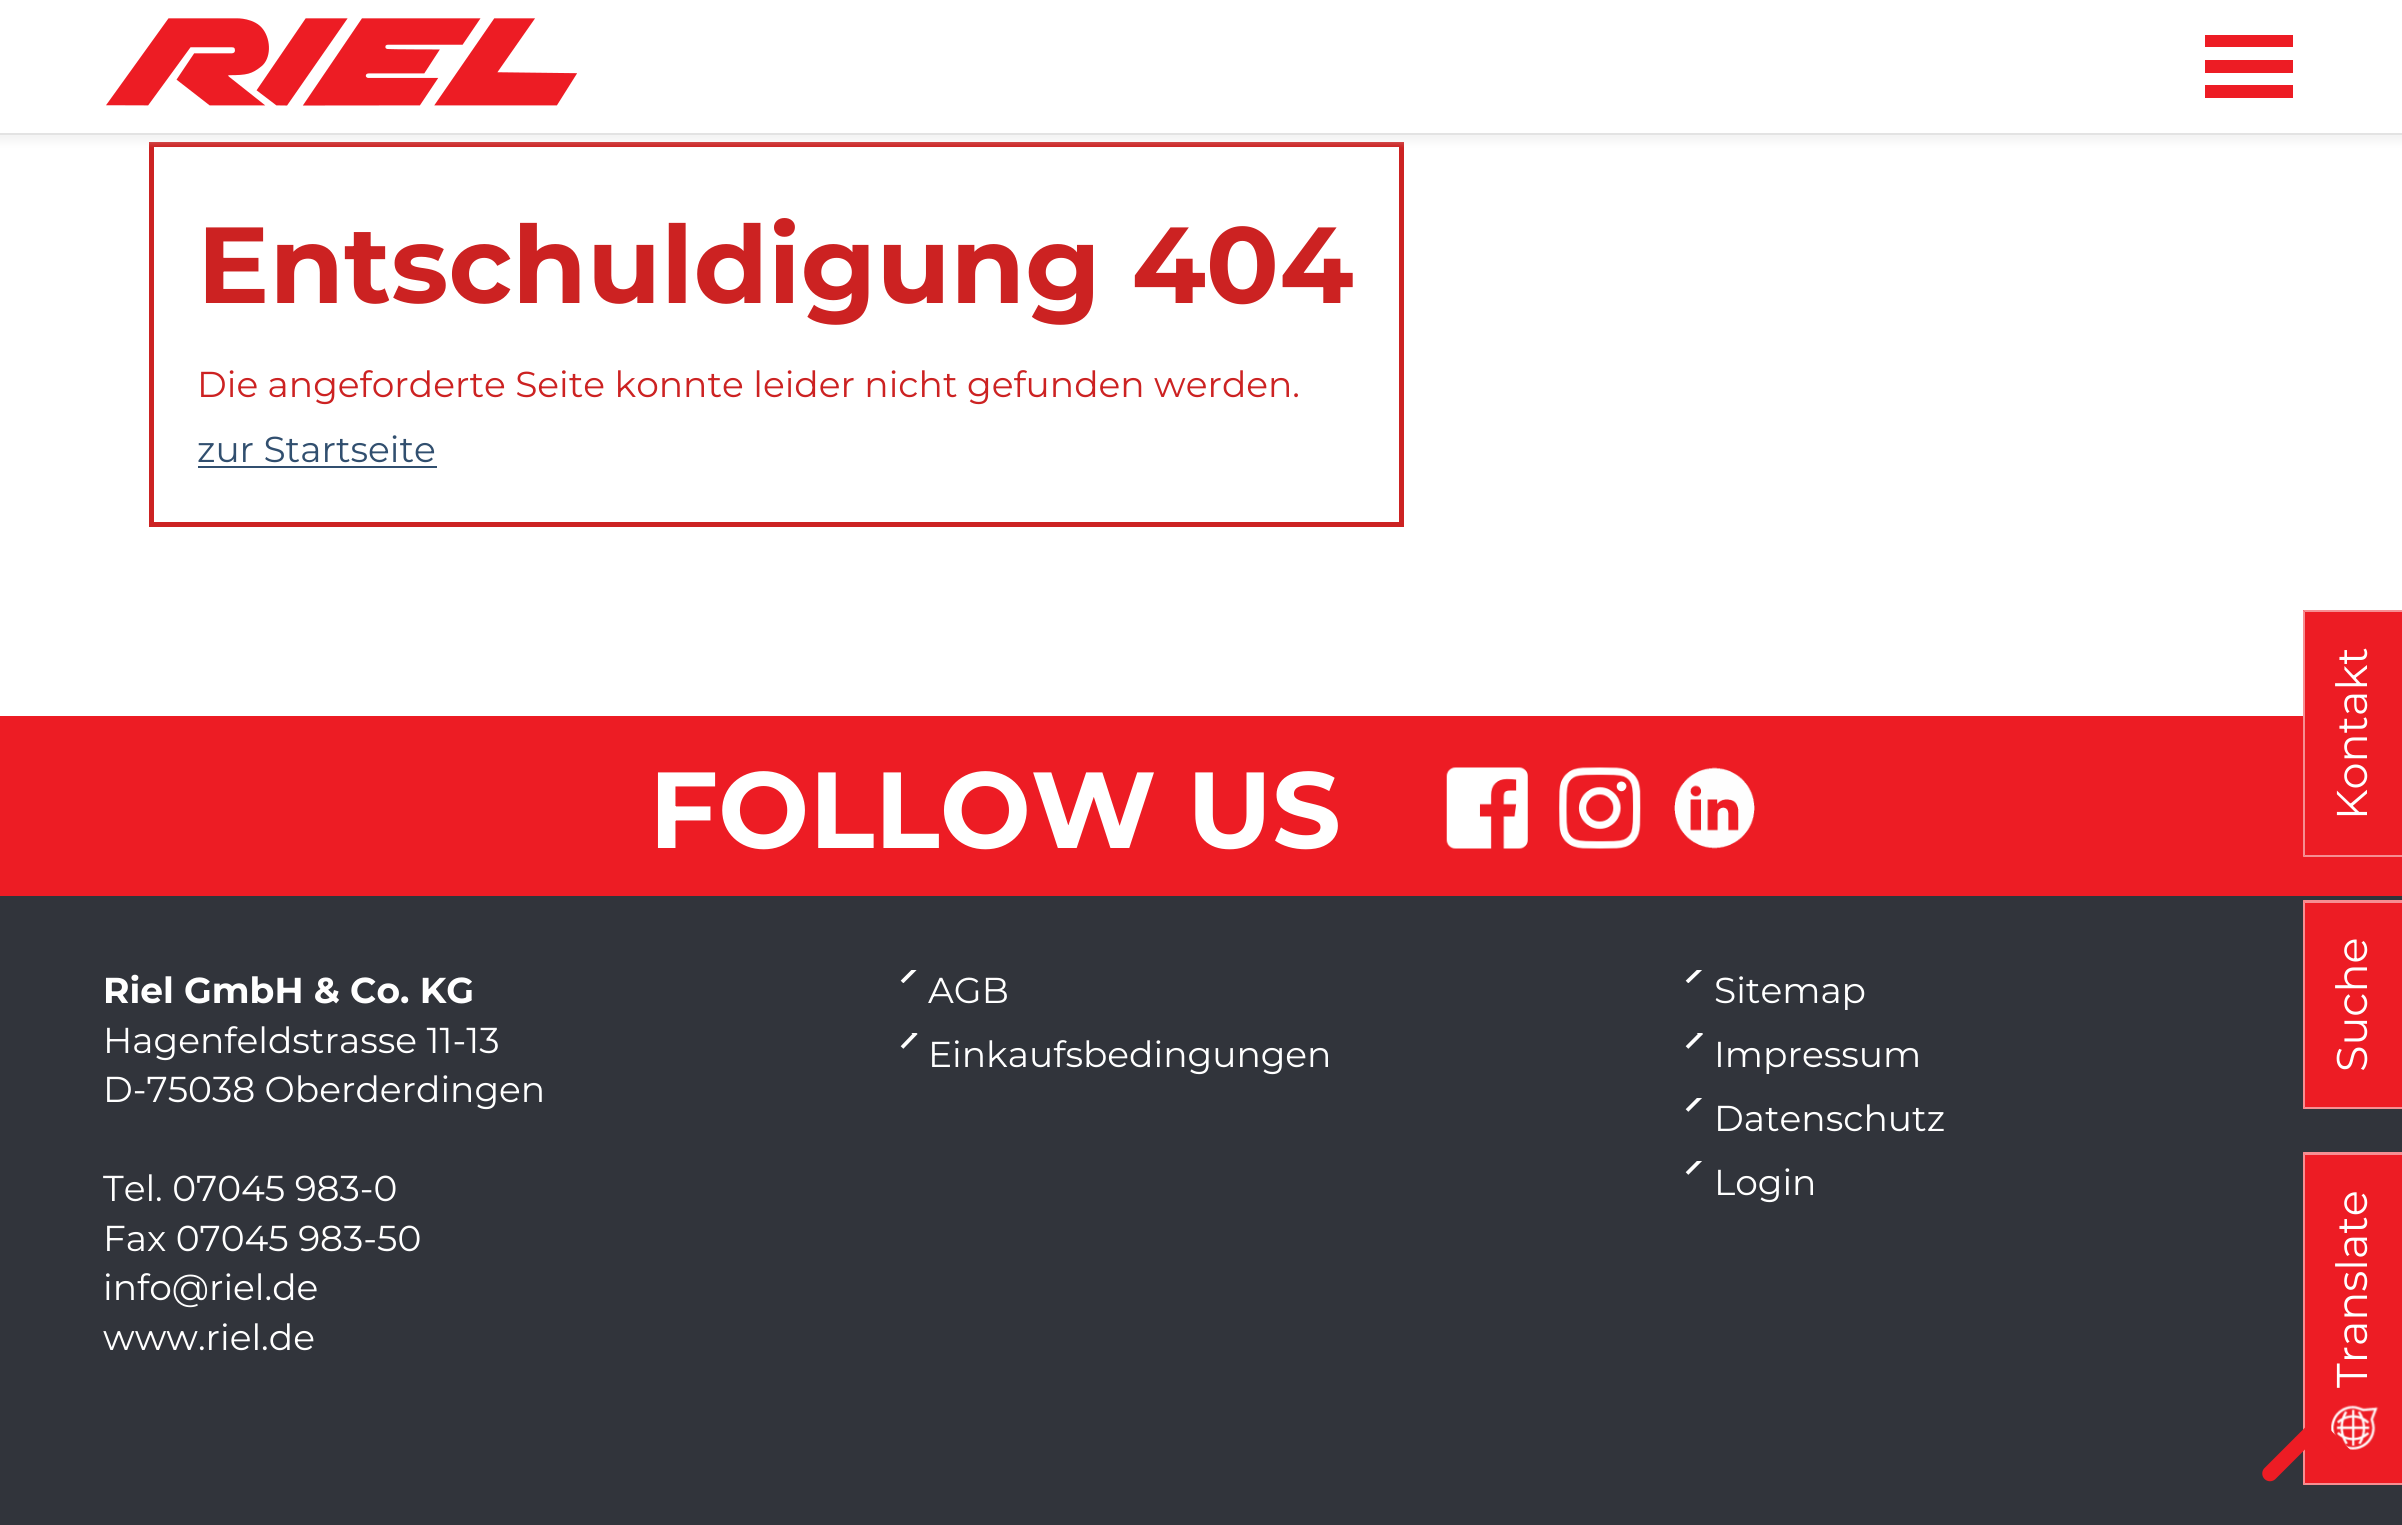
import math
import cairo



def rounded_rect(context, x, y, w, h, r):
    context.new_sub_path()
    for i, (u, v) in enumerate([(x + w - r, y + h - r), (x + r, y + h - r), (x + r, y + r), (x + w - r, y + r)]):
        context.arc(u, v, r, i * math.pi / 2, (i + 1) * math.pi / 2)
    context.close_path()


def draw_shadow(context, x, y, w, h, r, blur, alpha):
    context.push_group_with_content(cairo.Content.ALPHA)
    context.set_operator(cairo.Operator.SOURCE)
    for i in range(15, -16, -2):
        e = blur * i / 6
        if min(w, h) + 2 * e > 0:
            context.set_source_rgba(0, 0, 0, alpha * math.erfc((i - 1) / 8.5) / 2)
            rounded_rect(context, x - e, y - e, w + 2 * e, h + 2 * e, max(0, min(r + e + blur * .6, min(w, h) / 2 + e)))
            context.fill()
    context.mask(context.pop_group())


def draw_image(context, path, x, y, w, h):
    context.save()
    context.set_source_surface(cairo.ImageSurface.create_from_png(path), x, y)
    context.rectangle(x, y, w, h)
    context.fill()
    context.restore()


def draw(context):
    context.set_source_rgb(49 / 255, 52 / 255, 59 / 255)
    context.paint()
    context.set_source_rgb(1, 1, 1)
    context.rectangle(0, 0, 2402, 716)
    context.fill()
    context.rectangle(151.5, 144.5, 1250, 380)
    context.set_source_rgb(204 / 255, 34 / 255, 34 / 255)
    context.set_line_width(5)
    context.stroke()
    context.save()
    context.rectangle(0, 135, 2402, 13)
    context.clip()
    context.set_source_rgb(227 / 255, 227 / 255, 227 / 255)
    draw_shadow(context, -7, -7, 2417, 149, 0, 3.5, 0.4)
    context.restore()
    context.set_source_rgb(227 / 255, 227 / 255, 227 / 255)
    context.rectangle(0, 133, 2402, 2)
    context.fill()
    draw_image(context, "images/1.png", 106, 18, 471, 88)
    context.set_source_rgb(237 / 255, 28 / 255, 36 / 255)
    context.new_path()
    context.move_to(2205, 35)
    context.line_to(2293, 35)
    context.line_to(2293, 47)
    context.line_to(2205, 47)
    context.close_path()
    context.move_to(2205, 60)
    context.line_to(2293, 60)
    context.line_to(2293, 73)
    context.line_to(2205, 73)
    context.close_path()
    context.move_to(2205, 85)
    context.line_to(2293, 85)
    context.line_to(2293, 98)
    context.line_to(2205, 98)
    context.close_path()
    context.fill()
    context.rectangle(2303, 1152, 99, 333)
    context.fill()
    context.set_source_rgb(246 / 255, 142 / 255, 146 / 255)
    context.new_path()
    context.move_to(2303, 1485)
    context.line_to(2303, 1152)
    context.line_to(2305, 1155)
    context.line_to(2305, 1483)
    context.close_path()
    context.fill()
    draw_image(context, "images/5.png", 2331, 1405, 48, 45)
    context.new_path()
    context.move_to(2270, 1473.5)
    context.line_to(2316.5, 1427)
    context.line_to(2363, 1473.5)
    context.set_source_rgb(237 / 255, 28 / 255, 36 / 255)
    context.set_line_width(15.5)
    context.set_line_cap(cairo.LineCap.ROUND)
    context.stroke()
    context.set_source_rgb(49 / 255, 79 / 255, 111 / 255)
    context.rectangle(198, 466, 239, 2)
    context.fill()
    context.set_source_rgb(237 / 255, 28 / 255, 36 / 255)
    context.rectangle(0, 716, 2402, 180)
    context.fill()
    draw_image(context, "images/2.png", 1446, 767, 82, 82)
    draw_image(context, "images/3.png", 1559, 767, 82, 82)
    draw_image(context, "images/4.png", 1674, 767, 81, 82)
    context.save()
    context.rectangle(900, 970, 18, 13)
    context.clip()
    context.new_path()
    context.move_to(902, 955.5)
    context.line_to(915, 969)
    context.line_to(902, 982)
    context.set_source_rgb(1, 1, 1)
    context.set_line_width(3.7)
    context.set_line_cap(cairo.LineCap.BUTT)
    context.stroke()
    context.restore()
    context.save()
    context.rectangle(900, 1033, 18, 16)
    context.clip()
    context.new_path()
    context.move_to(902, 1021)
    context.line_to(915, 1034)
    context.line_to(902, 1047.5)
    context.set_source_rgb(1, 1, 1)
    context.set_line_width(3.7)
    context.set_line_cap(cairo.LineCap.BUTT)
    context.stroke()
    context.restore()
    context.save()
    context.rectangle(1685, 970, 18, 13)
    context.clip()
    context.new_path()
    context.move_to(1687, 955.5)
    context.line_to(1700.5, 969)
    context.line_to(1687, 982)
    context.set_source_rgb(1, 1, 1)
    context.set_line_width(3.7)
    context.set_line_cap(cairo.LineCap.BUTT)
    context.stroke()
    context.restore()
    context.save()
    context.rectangle(1685, 1033, 18, 16)
    context.clip()
    context.new_path()
    context.move_to(1687, 1021)
    context.line_to(1700.5, 1034)
    context.line_to(1687, 1047.5)
    context.set_source_rgb(1, 1, 1)
    context.set_line_width(3.7)
    context.set_line_cap(cairo.LineCap.BUTT)
    context.stroke()
    context.restore()
    context.save()
    context.rectangle(1685, 1098, 18, 14)
    context.clip()
    context.new_path()
    context.move_to(1687, 1084)
    context.line_to(1700.5, 1097)
    context.line_to(1687, 1110.5)
    context.set_source_rgb(1, 1, 1)
    context.set_line_width(3.7)
    context.set_line_cap(cairo.LineCap.BUTT)
    context.stroke()
    context.restore()
    context.save()
    context.rectangle(1685, 1161, 18, 16)
    context.clip()
    context.new_path()
    context.move_to(1687, 1147)
    context.line_to(1700.5, 1160)
    context.line_to(1687, 1173.5)
    context.set_source_rgb(1, 1, 1)
    context.set_line_width(3.7)
    context.set_line_cap(cairo.LineCap.BUTT)
    context.stroke()
    context.restore()
    context.rectangle(2303, 610, 99, 106)
    context.fill()
    context.set_source_rgb(246 / 255, 142 / 255, 146 / 255)
    context.new_path()
    context.move_to(2303, 857)
    context.line_to(2303, 610)
    context.line_to(2305, 612)
    context.line_to(2305, 855)
    context.close_path()
    context.fill()
    context.new_path()
    context.move_to(2303, 610)
    context.line_to(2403, 610)
    context.line_to(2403, 612)
    context.line_to(2305, 612)
    context.close_path()
    context.fill()
    context.set_source_rgba(1, 1, 1, 0.5)
    context.new_path()
    context.move_to(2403, 857)
    context.line_to(2303, 857)
    context.line_to(2305, 855)
    context.line_to(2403, 855)
    context.close_path()
    context.fill()
    context.set_source_rgb(237 / 255, 28 / 255, 36 / 255)
    context.rectangle(2303, 900, 99, 209)
    context.fill()
    context.set_source_rgb(246 / 255, 142 / 255, 146 / 255)
    context.new_path()
    context.move_to(2303, 1109)
    context.line_to(2303, 900)
    context.line_to(2305, 903)
    context.line_to(2305, 1107)
    context.close_path()
    context.fill()
    context.set_source_rgba(1, 1, 1, 0.5)
    context.new_path()
    context.move_to(2303, 900)
    context.line_to(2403, 900)
    context.line_to(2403, 903)
    context.line_to(2305, 903)
    context.close_path()
    context.fill()
    context.new_path()
    context.move_to(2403, 1109)
    context.line_to(2303, 1109)
    context.line_to(2305, 1107)
    context.line_to(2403, 1107)
    context.close_path()
    context.fill()
    context.new_path()
    context.move_to(2303, 1152)
    context.line_to(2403, 1152)
    context.line_to(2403, 1155)
    context.line_to(2305, 1155)
    context.close_path()
    context.fill()
    context.new_path()
    context.move_to(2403, 1485)
    context.line_to(2303, 1485)
    context.line_to(2305, 1483)
    context.line_to(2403, 1483)
    context.close_path()
    context.fill()
    context.select_font_face("Montserrat Thin")
    context.set_font_size(108)
    context.set_source_rgb(204 / 255, 34 / 255, 34 / 255)
    context.move_to(197, 303)
    context.show_text("Entschuldigung 404")
    context.select_font_face("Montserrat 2 Thin")
    context.set_font_size(36)
    context.move_to(197, 397)
    context.show_text("Die angeforderte Seite konnte leider nicht gefunden werden.")
    context.set_source_rgb(49 / 255, 79 / 255, 111 / 255)
    context.move_to(197, 462)
    context.show_text("zur Startseite")
    context.select_font_face("Montserrat Thin")
    context.set_font_size(108)
    context.set_source_rgb(1, 1, 1)
    context.move_to(649, 848)
    context.show_text("FOLLOW US")
    context.set_font_size(36)
    context.move_to(103, 1003)
    context.show_text("Riel GmbH & Co. KG")
    context.select_font_face("Montserrat 2 Thin")
    context.move_to(103, 1053)
    context.show_text("Hagenfeldstrasse 11-13")
    context.move_to(103, 1102)
    context.show_text("D-75038 Oberderdingen")
    context.move_to(103, 1201)
    context.show_text("Tel. 07045 983-0")
    context.move_to(103, 1251)
    context.show_text("Fax 07045 983-50")
    context.move_to(103, 1300)
    context.show_text("info@riel.de")
    context.move_to(103, 1350)
    context.show_text("www.riel.de")
    context.move_to(928, 1003)
    context.show_text("AGB")
    context.move_to(928, 1067)
    context.show_text("Einkaufsbedingungen")
    context.move_to(1714, 1003)
    context.show_text("Sitemap")
    context.move_to(1714, 1067)
    context.show_text("Impressum")
    context.move_to(1714, 1131)
    context.show_text("Datenschutz")
    context.move_to(1714, 1195)
    context.show_text("Login")
    context.set_font_size(43)
    context.save()
    context.translate(2367, 820)
    context.rotate(-90 * math.pi / 180)
    context.move_to(0, 0)
    context.show_text("Kontakt")
    context.restore()
    context.save()
    context.translate(2367, 1072)
    context.rotate(-90 * math.pi / 180)
    context.move_to(0, 0)
    context.show_text("Suche")
    context.restore()
    context.save()
    context.translate(2367, 1388)
    context.rotate(-90 * math.pi / 180)
    context.move_to(0, 0)
    context.show_text("Translate")
    context.restore()


surface = cairo.ImageSurface(cairo.Format.RGB24, 2402, 1525)
context = cairo.Context(surface)
options = cairo.FontOptions()
options.set_hint_metrics(cairo.HintMetrics.OFF)
options.set_hint_style(cairo.HintStyle.NONE)
context.set_font_options(options)
context.set_miter_limit(4)
draw(context)
surface.write_to_png("out.png")
